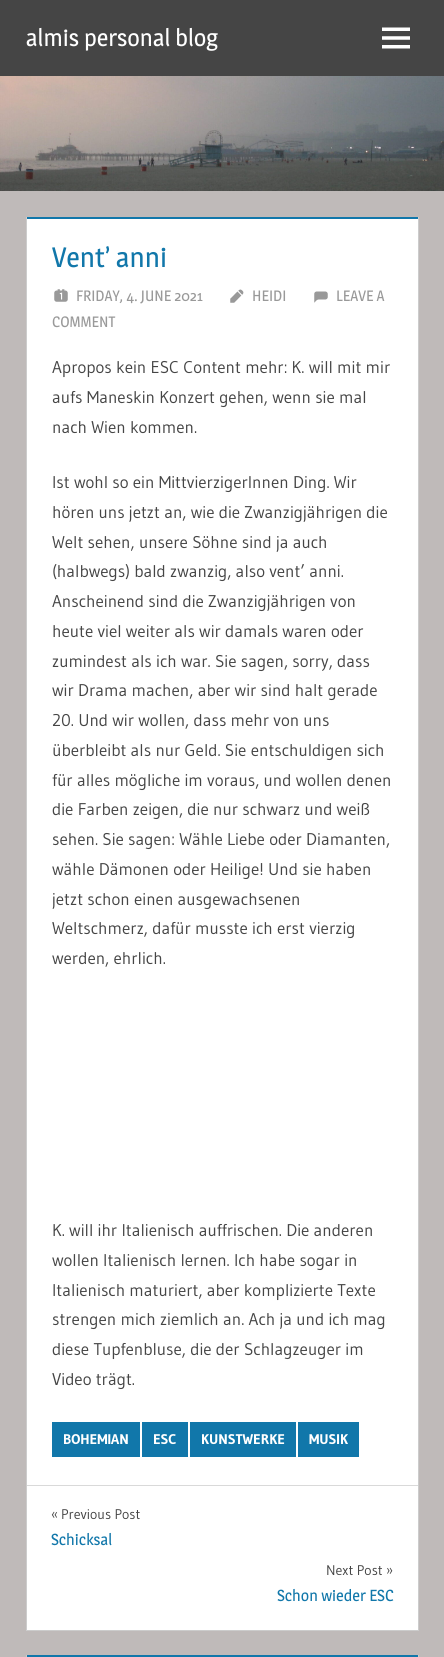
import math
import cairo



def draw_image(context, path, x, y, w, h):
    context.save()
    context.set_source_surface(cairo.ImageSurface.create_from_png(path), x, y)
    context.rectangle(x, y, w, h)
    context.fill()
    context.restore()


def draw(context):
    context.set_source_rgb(191 / 255, 186 / 255, 185 / 255)
    context.paint()
    context.set_source_rgb(69 / 255, 69 / 255, 69 / 255)
    context.rectangle(0, 0, 444, 76)
    context.fill()
    draw_image(context, "images/1.png", 382, 27, 28, 22)
    draw_image(context, "images/2.png", 0, 76, 444, 115)
    context.set_source_rgb(1, 1, 1)
    context.rectangle(26, 217, 393, 1414)
    context.fill()
    context.set_source_rgb(17 / 255, 119 / 255, 170 / 255)
    context.rectangle(27, 217, 391, 2)
    context.fill()
    context.set_source_rgb(204 / 255, 204 / 255, 204 / 255)
    context.new_path()
    context.move_to(419, 217)
    context.line_to(419, 1631)
    context.line_to(418, 1630)
    context.line_to(418, 217)
    context.close_path()
    context.fill()
    context.set_source_rgba(0, 0, 0, 0.2)
    context.new_path()
    context.move_to(419, 1631)
    context.line_to(26, 1631)
    context.line_to(27, 1630)
    context.line_to(418, 1630)
    context.close_path()
    context.fill()
    context.new_path()
    context.move_to(26, 1631)
    context.line_to(26, 217)
    context.line_to(27, 217)
    context.line_to(27, 1630)
    context.close_path()
    context.fill()
    draw_image(context, "images/3.png", 54, 289, 14, 13)
    draw_image(context, "images/4.png", 230, 289, 14, 14)
    draw_image(context, "images/5.png", 314, 291, 14, 12)
    context.set_source_rgb(17 / 255, 119 / 255, 170 / 255)
    context.rectangle(52, 1422, 88, 35)
    context.fill()
    context.rectangle(142, 1422, 46, 35)
    context.fill()
    context.rectangle(190, 1422, 106, 35)
    context.fill()
    context.rectangle(298, 1422, 61, 35)
    context.fill()
    context.set_source_rgb(217 / 255, 217 / 255, 217 / 255)
    context.rectangle(27, 1485, 391, 1)
    context.fill()
    context.set_source_rgb(17 / 255, 119 / 255, 170 / 255)
    context.rectangle(27, 1655, 391, 2)
    context.fill()
    context.set_source_rgb(204 / 255, 204 / 255, 204 / 255)
    context.new_path()
    context.move_to(419, 1655)
    context.line_to(419, 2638)
    context.line_to(418, 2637)
    context.line_to(418, 1655)
    context.close_path()
    context.fill()
    context.new_path()
    context.move_to(26, 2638)
    context.line_to(26, 1655)
    context.line_to(27, 1655)
    context.line_to(27, 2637)
    context.close_path()
    context.fill()
    context.select_font_face("Magra")
    context.set_font_size(24)
    context.set_source_rgb(1, 1, 1)
    context.move_to(26, 46)
    context.show_text("almis personal blog")
    context.set_font_size(28)
    context.set_source_rgb(17 / 255, 119 / 255, 170 / 255)
    context.move_to(52, 267)
    context.show_text("Vent’ anni")
    context.set_font_size(15)
    context.set_source_rgb(153 / 255, 153 / 255, 153 / 255)
    context.move_to(76, 301)
    context.show_text("FRIDAY, 4. JUNE 2021")
    context.move_to(252, 301)
    context.show_text("HEIDI")
    context.move_to(336, 301)
    context.show_text("LEAVE A")
    context.move_to(52, 327)
    context.show_text("COMMENT")
    context.select_font_face("Gudea")
    context.set_font_size(17)
    context.set_source_rgb(69 / 255, 69 / 255, 69 / 255)
    context.move_to(52, 373)
    context.show_text("Apropos kein ESC Content mehr: K. will mit mir")
    context.move_to(52, 403)
    context.show_text("aufs Maneskin Konzert gehen, wenn sie mal")
    context.move_to(52, 433)
    context.show_text("nach Wien kommen.")
    context.move_to(52, 488)
    context.show_text("Ist wohl so ein MittvierzigerInnen Ding. Wir")
    context.move_to(52, 518)
    context.show_text("hören uns jetzt an, wie die Zwanzigjährigen die")
    context.move_to(52, 548)
    context.show_text("Welt sehen, unsere Söhne sind ja auch")
    context.move_to(52, 577)
    context.show_text("(halbwegs) bald zwanzig, also vent’ anni.")
    context.move_to(52, 607)
    context.show_text("Anscheinend sind die Zwanzigjährigen von")
    context.move_to(52, 637)
    context.show_text("heute viel weiter als wir damals waren oder")
    context.move_to(52, 667)
    context.show_text("zumindest als ich war. Sie sagen, sorry, dass")
    context.move_to(52, 696)
    context.show_text("wir Drama machen, aber wir sind halt gerade")
    context.move_to(52, 726)
    context.show_text("20. Und wir wollen, dass mehr von uns")
    context.move_to(52, 756)
    context.show_text("überbleibt als nur Geld. Sie entschuldigen sich")
    context.move_to(52, 786)
    context.show_text("für alles mögliche im voraus, und wollen denen")
    context.move_to(52, 815)
    context.show_text("die Farben zeigen, die nur schwarz und weiß")
    context.move_to(52, 845)
    context.show_text("sehen. Sie sagen: Wähle Liebe oder Diamanten,")
    context.move_to(52, 875)
    context.show_text("wähle Dämonen oder Heilige! Und sie haben")
    context.move_to(52, 905)
    context.show_text("jetzt schon einen ausgewachsenen")
    context.move_to(52, 934)
    context.show_text("Weltschmerz, dafür musste ich erst vierzig")
    context.move_to(52, 964)
    context.show_text("werden, ehrlich.")
    context.move_to(52, 1236)
    context.show_text("K. will ihr Italienisch auffrischen. Die anderen")
    context.move_to(52, 1266)
    context.show_text("wollen Italienisch lernen. Ich habe sogar in")
    context.move_to(52, 1296)
    context.show_text("Italienisch maturiert, aber komplizierte Texte")
    context.move_to(52, 1325)
    context.show_text("strengen mich ziemlich an. Ach ja und ich mag")
    context.move_to(52, 1355)
    context.show_text("diese Tupfenbluse, die der Schlagzeuger im")
    context.move_to(52, 1385)
    context.show_text("Video trägt.")
    context.select_font_face("Gudea", cairo.FontSlant.NORMAL, cairo.FontWeight.BOLD)
    context.set_font_size(14)
    context.set_source_rgb(1, 1, 1)
    context.move_to(63, 1444)
    context.show_text("BOHEMIAN")
    context.move_to(153, 1444)
    context.show_text("ESC")
    context.move_to(201, 1444)
    context.show_text("KUNSTWERKE")
    context.move_to(309, 1444)
    context.show_text("MUSIK")
    context.select_font_face("Gudea")
    context.set_source_rgb(69 / 255, 69 / 255, 69 / 255)
    context.move_to(51, 1519)
    context.show_text("«")
    context.move_to(61, 1519)
    context.show_text("Previous Post")
    context.select_font_face("Magra")
    context.set_font_size(16)
    context.set_source_rgb(17 / 255, 119 / 255, 170 / 255)
    context.move_to(51, 1545)
    context.show_text("Schicksal")
    context.select_font_face("Gudea")
    context.set_font_size(14)
    context.set_source_rgb(69 / 255, 69 / 255, 69 / 255)
    context.move_to(326, 1575)
    context.show_text("Next Post")
    context.move_to(386, 1575)
    context.show_text("»")
    context.select_font_face("Magra")
    context.set_font_size(16)
    context.set_source_rgb(17 / 255, 119 / 255, 170 / 255)
    context.move_to(277, 1601)
    context.show_text("Schon wieder ESC")


surface = cairo.ImageSurface(cairo.Format.RGB24, 444, 1657)
context = cairo.Context(surface)
options = cairo.FontOptions()
options.set_hint_metrics(cairo.HintMetrics.OFF)
options.set_hint_style(cairo.HintStyle.NONE)
context.set_font_options(options)
context.set_miter_limit(4)
draw(context)
surface.write_to_png("out.png")
